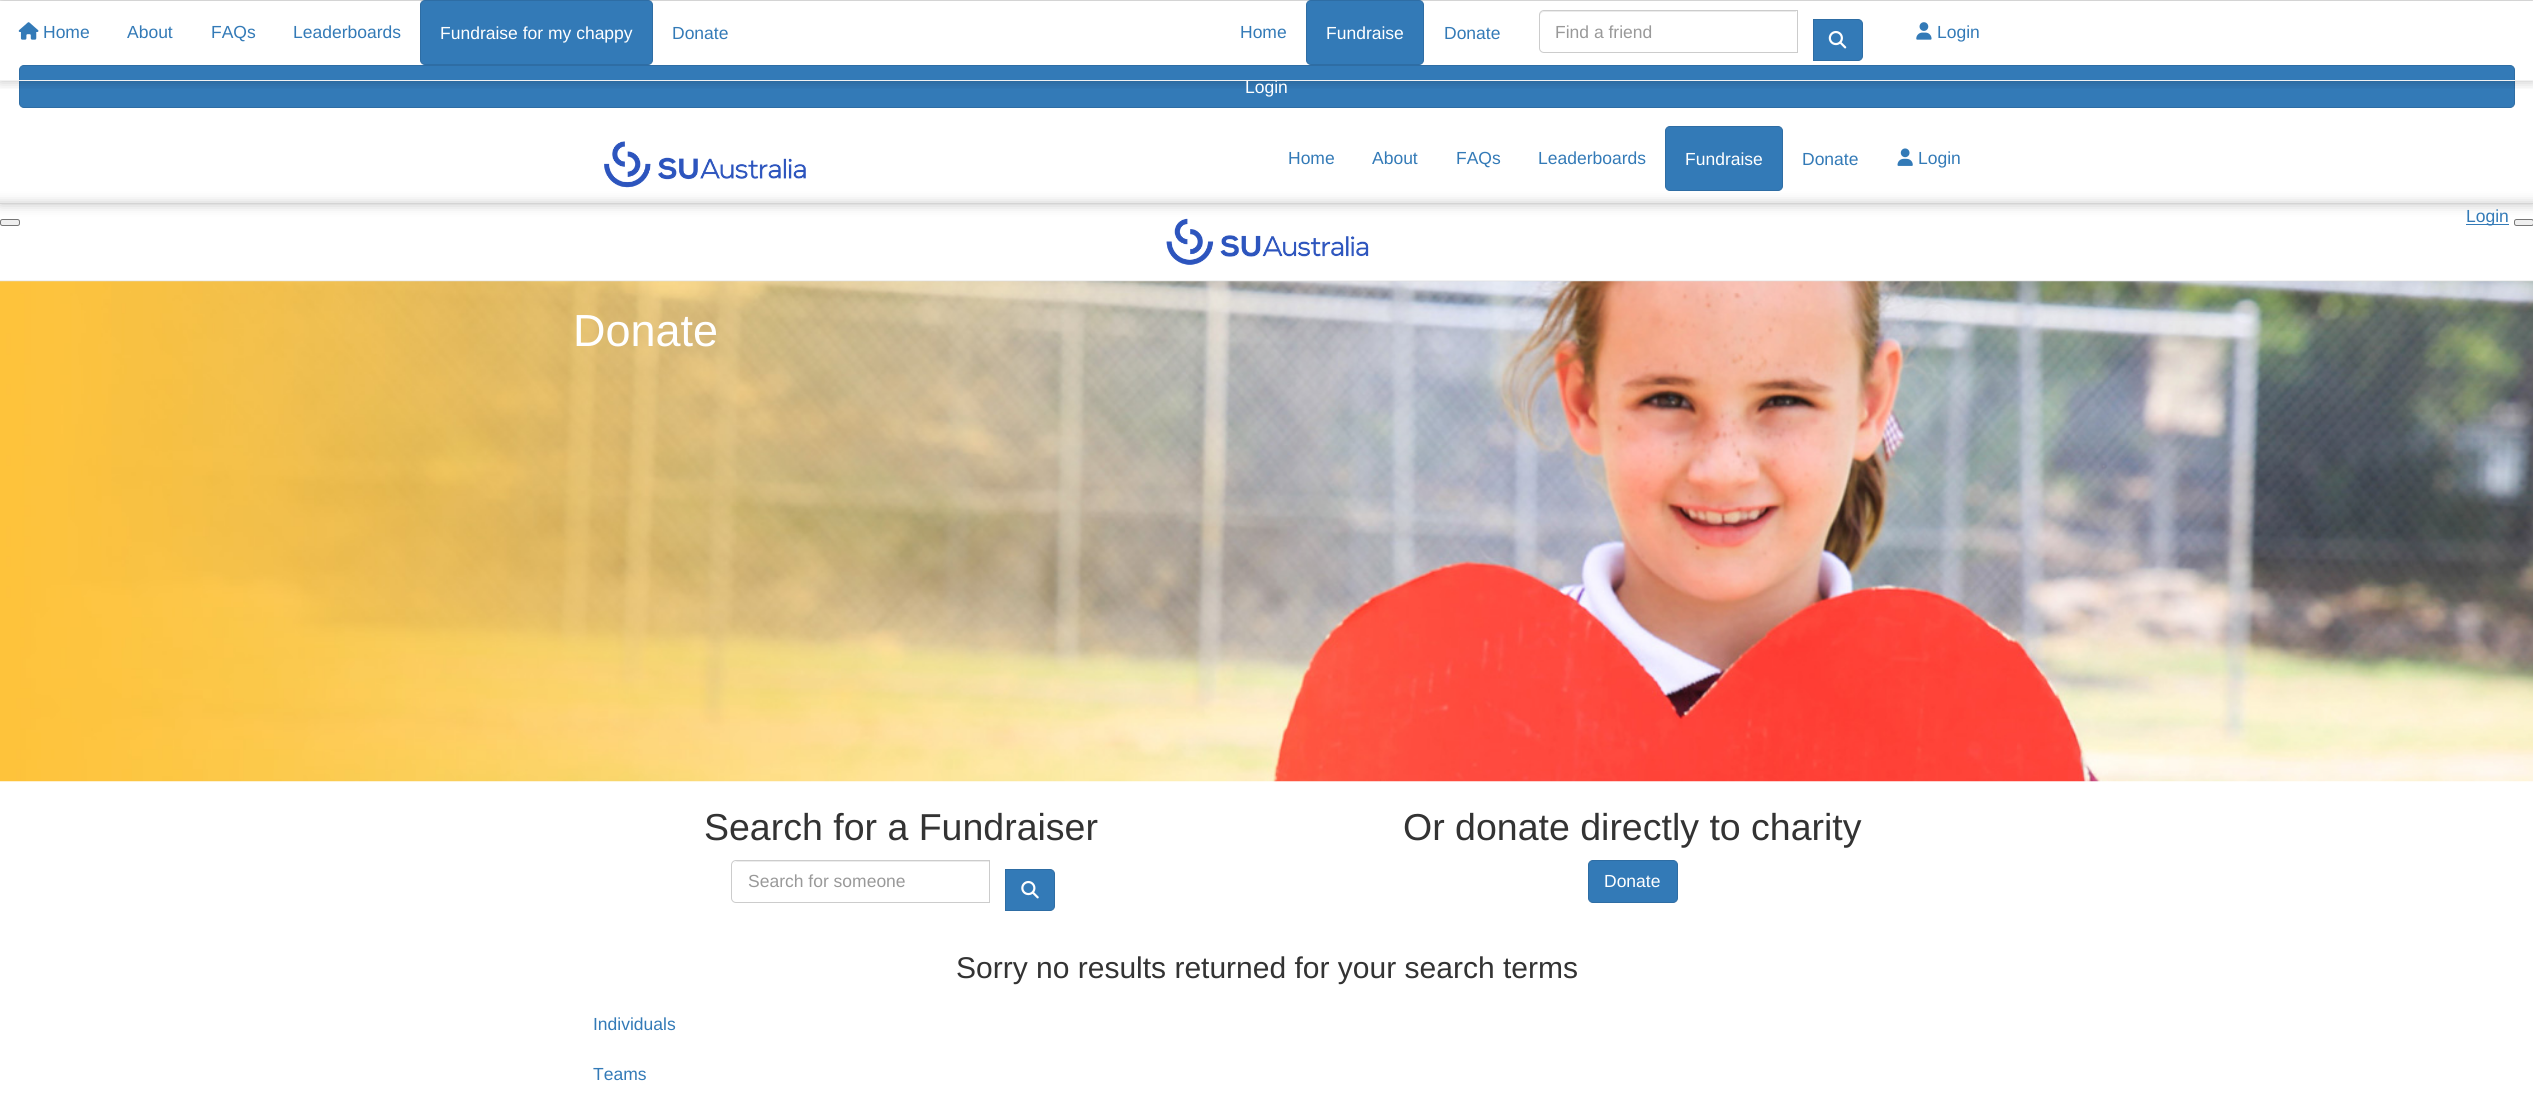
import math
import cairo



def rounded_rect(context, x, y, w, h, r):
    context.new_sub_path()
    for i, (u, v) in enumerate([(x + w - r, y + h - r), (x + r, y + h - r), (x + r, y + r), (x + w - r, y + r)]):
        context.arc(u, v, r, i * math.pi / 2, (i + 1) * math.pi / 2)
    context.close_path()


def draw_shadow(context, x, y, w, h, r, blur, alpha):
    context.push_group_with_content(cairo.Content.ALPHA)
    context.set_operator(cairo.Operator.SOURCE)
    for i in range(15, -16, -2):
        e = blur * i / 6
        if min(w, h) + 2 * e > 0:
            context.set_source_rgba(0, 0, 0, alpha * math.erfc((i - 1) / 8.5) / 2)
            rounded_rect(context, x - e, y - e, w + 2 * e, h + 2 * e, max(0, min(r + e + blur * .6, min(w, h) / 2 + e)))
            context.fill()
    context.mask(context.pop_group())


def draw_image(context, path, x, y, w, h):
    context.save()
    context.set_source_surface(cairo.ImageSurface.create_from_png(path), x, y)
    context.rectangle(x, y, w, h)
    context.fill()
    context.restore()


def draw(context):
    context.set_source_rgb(1, 1, 1)
    context.paint()
    context.set_source_rgb(242 / 255, 242 / 255, 242 / 255)
    context.rectangle(0, 0, 2533, 1)
    context.fill()
    context.save()
    context.set_fill_rule(cairo.FillRule.EVEN_ODD)
    context.new_path()
    context.move_to(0, 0)
    context.line_to(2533, 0)
    context.line_to(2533, 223)
    context.line_to(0, 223)
    context.close_path()
    context.move_to(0, 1)
    context.line_to(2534, 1)
    context.line_to(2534, 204)
    context.line_to(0, 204)
    context.close_path()
    context.clip()
    context.set_source_rgb(0, 0, 0)
    draw_shadow(context, 0, 1, 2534, 203, 0, 6, 0.25)
    context.restore()
    draw_image(context, "images/1.png", 18, 22, 21, 18)
    context.set_source_rgb(51 / 255, 122 / 255, 183 / 255)
    rounded_rect(context, 420.5, 0.5, 232, 64, 4.5)
    context.fill_preserve()
    context.set_source_rgb(46 / 255, 109 / 255, 164 / 255)
    context.set_line_width(1)
    context.stroke()
    context.set_source_rgb(51 / 255, 122 / 255, 183 / 255)
    rounded_rect(context, 19.5, 65.5, 2495, 42, 4.5)
    context.fill_preserve()
    context.set_source_rgb(46 / 255, 109 / 255, 164 / 255)
    context.stroke()
    context.save()
    context.rectangle(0, 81, 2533, 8)
    context.clip()
    context.set_source_rgb(0, 0, 0)
    draw_shadow(context, 0, 0, 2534, 81, 0, 6, 0.25)
    context.restore()
    context.set_source_rgb(51 / 255, 122 / 255, 183 / 255)
    rounded_rect(context, 1306.5, 0.5, 117, 64, 4.5)
    context.fill_preserve()
    context.set_source_rgb(46 / 255, 109 / 255, 164 / 255)
    context.stroke()
    context.set_source_rgb(235 / 255, 235 / 255, 235 / 255)
    context.new_path()
    context.move_to(1544, 12)
    context.line_to(1796, 12)
    context.line_to(1796, 11)
    context.line_to(1544, 11)
    context.curve_to(1542, 11, 1540, 13, 1540, 15)
    context.line_to(1540, 16)
    context.curve_to(1540, 14, 1542, 12, 1544, 12)
    context.close_path()
    context.fill()
    context.new_path()
    context.move_to(1544, 10.5)
    context.line_to(1797.5, 10.5)
    context.line_to(1797.5, 52.5)
    context.line_to(1544, 52.5)
    context.curve_to(1541.5, 52.5, 1539.5, 50.5, 1539.5, 48)
    context.line_to(1539.5, 15)
    context.curve_to(1539.5, 12.5, 1541.5, 10.5, 1544, 10.5)
    context.close_path()
    context.set_source_rgb(204 / 255, 204 / 255, 204 / 255)
    context.stroke()
    context.set_source_rgb(51 / 255, 122 / 255, 183 / 255)
    context.new_path()
    context.move_to(1813.5, 19.5)
    context.line_to(1858, 19.5)
    context.curve_to(1860.5, 19.5, 1862.5, 21.5, 1862.5, 24)
    context.line_to(1862.5, 56)
    context.curve_to(1862.5, 58.5, 1860.5, 60.5, 1858, 60.5)
    context.line_to(1813.5, 60.5)
    context.close_path()
    context.fill_preserve()
    context.set_source_rgb(46 / 255, 109 / 255, 164 / 255)
    context.stroke()
    draw_image(context, "images/2.png", 1828, 30, 19, 19)
    draw_image(context, "images/3.png", 1916, 22, 16, 18)
    context.set_source_rgb(242 / 255, 242 / 255, 242 / 255)
    context.rectangle(0, 203, 2533, 1)
    context.fill()
    context.save()
    context.set_fill_rule(cairo.FillRule.EVEN_ODD)
    context.new_path()
    context.move_to(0, 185)
    context.line_to(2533, 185)
    context.line_to(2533, 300)
    context.line_to(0, 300)
    context.close_path()
    context.move_to(-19, 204)
    context.line_to(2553, 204)
    context.line_to(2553, 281)
    context.line_to(-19, 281)
    context.close_path()
    context.clip()
    context.set_source_rgb(0, 0, 0)
    draw_shadow(context, -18, 204, 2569, 77, 0, 6, 0.25)
    context.restore()
    draw_image(context, "images/4.png", 604, 141, 202, 47)
    context.set_source_rgb(51 / 255, 122 / 255, 183 / 255)
    rounded_rect(context, 1665.5, 126.5, 117, 64, 4.5)
    context.fill_preserve()
    context.set_source_rgb(46 / 255, 109 / 255, 164 / 255)
    context.stroke()
    draw_image(context, "images/5.png", 1897, 148, 16, 18)
    context.set_source_rgb(242 / 255, 242 / 255, 242 / 255)
    context.rectangle(0, 280, 2533, 1)
    context.fill()
    context.set_source_rgb(239 / 255, 239 / 255, 239 / 255)
    rounded_rect(context, 0.5, 219.5, 19, 6, 2)
    context.fill_preserve()
    context.set_source_rgb(118 / 255, 118 / 255, 118 / 255)
    context.stroke()
    draw_image(context, "images/6.png", 1166, 218, 203, 47)
    context.set_source_rgb(51 / 255, 122 / 255, 183 / 255)
    context.rectangle(2466, 224, 43, 1)
    context.fill()
    context.set_source_rgb(239 / 255, 239 / 255, 239 / 255)
    rounded_rect(context, 2514.5, 219.5, 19, 6, 2)
    context.fill_preserve()
    context.set_source_rgb(118 / 255, 118 / 255, 118 / 255)
    context.stroke()
    draw_image(context, "images/7.png", 0, 281, 2533, 501)
    context.set_source_rgb(236 / 255, 236 / 255, 236 / 255)
    context.new_path()
    context.move_to(736, 862)
    context.line_to(989, 862)
    context.line_to(989, 861)
    context.line_to(737, 861)
    context.line_to(735, 862)
    context.line_to(734, 863)
    context.close_path()
    context.fill()
    context.new_path()
    context.move_to(736, 860.5)
    context.line_to(989.5, 860.5)
    context.line_to(989.5, 902.5)
    context.line_to(736, 902.5)
    context.curve_to(733.5, 902.5, 731.5, 900.5, 731.5, 898)
    context.line_to(731.5, 865)
    context.curve_to(731.5, 862.5, 733.5, 860.5, 736, 860.5)
    context.close_path()
    context.set_source_rgb(204 / 255, 204 / 255, 204 / 255)
    context.stroke()
    context.set_source_rgb(51 / 255, 122 / 255, 183 / 255)
    context.new_path()
    context.move_to(1005.5, 869.5)
    context.line_to(1050, 869.5)
    context.curve_to(1052.5, 869.5, 1054.5, 871.5, 1054.5, 874)
    context.line_to(1054.5, 906)
    context.curve_to(1054.5, 908.5, 1052.5, 910.5, 1050, 910.5)
    context.line_to(1005.5, 910.5)
    context.close_path()
    context.fill_preserve()
    context.set_source_rgb(46 / 255, 109 / 255, 164 / 255)
    context.stroke()
    draw_image(context, "images/8.png", 1021, 880, 18, 19)
    context.set_source_rgb(51 / 255, 122 / 255, 183 / 255)
    rounded_rect(context, 1588.5, 860.5, 89, 42, 4.5)
    context.fill_preserve()
    context.set_source_rgb(46 / 255, 109 / 255, 164 / 255)
    context.stroke()
    context.select_font_face("Liberation Sans")
    context.set_font_size(17.5)
    context.set_source_rgb(51 / 255, 122 / 255, 183 / 255)
    context.move_to(43, 38)
    context.show_text("Home")
    context.move_to(127, 38)
    context.show_text("About")
    context.move_to(211, 38)
    context.show_text("FAQs")
    context.move_to(293, 38)
    context.show_text("Leaderboards")
    context.set_source_rgb(1, 1, 1)
    context.move_to(440, 39)
    context.show_text("Fundraise for my chappy")
    context.set_source_rgb(51 / 255, 122 / 255, 183 / 255)
    context.move_to(672, 39)
    context.show_text("Donate")
    context.move_to(1240, 38)
    context.show_text("Home")
    context.set_source_rgb(1, 1, 1)
    context.move_to(1326, 39)
    context.show_text("Fundraise")
    context.set_source_rgb(51 / 255, 122 / 255, 183 / 255)
    context.move_to(1444, 39)
    context.show_text("Donate")
    context.set_source_rgb(153 / 255, 153 / 255, 153 / 255)
    context.move_to(1555, 38)
    context.show_text("Find a friend")
    context.set_source_rgb(51 / 255, 122 / 255, 183 / 255)
    context.move_to(1937, 38)
    context.show_text("Login")
    context.move_to(1288, 164)
    context.show_text("Home")
    context.move_to(1372, 164)
    context.show_text("About")
    context.move_to(1456, 164)
    context.show_text("FAQs")
    context.move_to(1538, 164)
    context.show_text("Leaderboards")
    context.set_source_rgb(1, 1, 1)
    context.move_to(1685, 165)
    context.show_text("Fundraise")
    context.set_source_rgb(51 / 255, 122 / 255, 183 / 255)
    context.move_to(1802, 165)
    context.show_text("Donate")
    context.move_to(1918, 164)
    context.show_text("Login")
    context.move_to(2466, 222)
    context.show_text("Login")
    context.set_font_size(45)
    context.set_source_rgb(1, 1, 1)
    context.move_to(573, 346)
    context.show_text("Donate")
    context.set_font_size(17.5)
    context.move_to(1245, 93)
    context.show_text("Login")
    context.set_source_rgb(242 / 255, 242 / 255, 242 / 255)
    context.rectangle(0, 80, 2533, 1)
    context.fill()
    context.set_font_size(37.5)
    context.set_source_rgb(51 / 255, 51 / 255, 51 / 255)
    context.move_to(704, 840)
    context.show_text("Search for a Fundraiser")
    context.set_font_size(17.5)
    context.set_source_rgb(153 / 255, 153 / 255, 153 / 255)
    context.move_to(748, 887)
    context.show_text("Search for someone")
    context.set_font_size(37.5)
    context.set_source_rgb(51 / 255, 51 / 255, 51 / 255)
    context.move_to(1403, 840)
    context.show_text("Or donate directly to charity")
    context.set_font_size(17.5)
    context.set_source_rgb(1, 1, 1)
    context.move_to(1604, 887)
    context.show_text("Donate")
    context.set_font_size(30)
    context.set_source_rgb(51 / 255, 51 / 255, 51 / 255)
    context.move_to(956, 978)
    context.show_text("Sorry no results returned for your search terms")
    context.set_font_size(17.5)
    context.set_source_rgb(51 / 255, 122 / 255, 183 / 255)
    context.move_to(593, 1030)
    context.show_text("Individuals")
    context.move_to(593, 1080)
    context.show_text("Teams")


surface = cairo.ImageSurface(cairo.Format.RGB24, 2533, 1094)
context = cairo.Context(surface)
options = cairo.FontOptions()
options.set_hint_metrics(cairo.HintMetrics.OFF)
options.set_hint_style(cairo.HintStyle.NONE)
context.set_font_options(options)
context.set_miter_limit(4)
draw(context)
surface.write_to_png("out.png")
